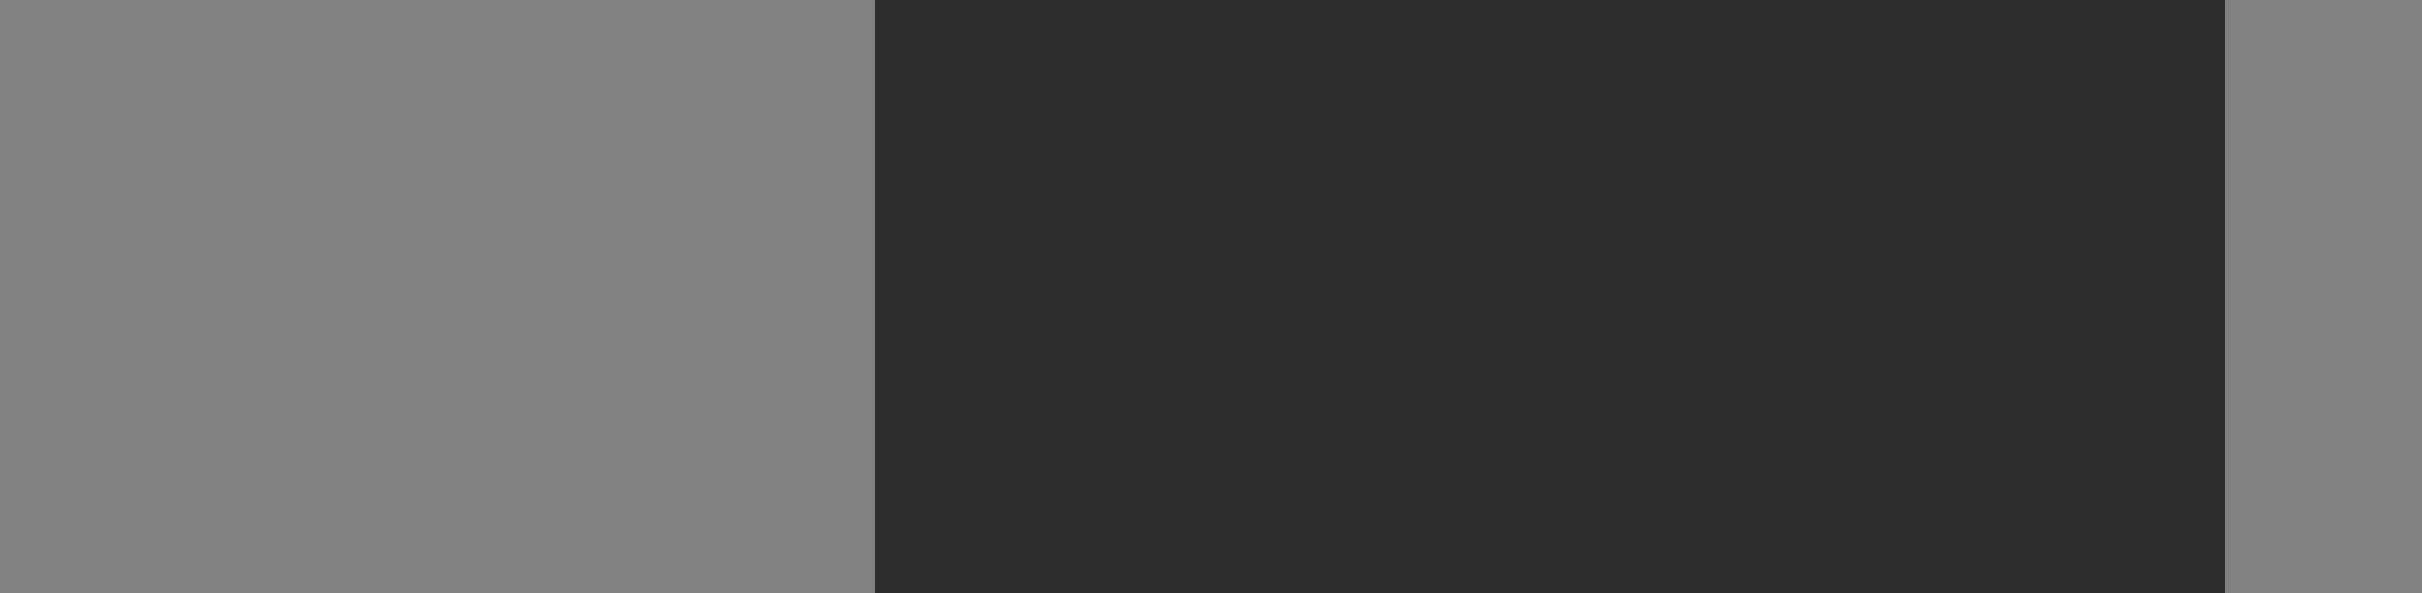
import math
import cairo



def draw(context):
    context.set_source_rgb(129 / 255, 129 / 255, 129 / 255)
    context.paint()
    context.set_source_rgb(45 / 255, 45 / 255, 45 / 255)
    context.rectangle(875, 0, 1350, 593)
    context.fill()


surface = cairo.ImageSurface(cairo.Format.RGB24, 2422, 593)
context = cairo.Context(surface)
options = cairo.FontOptions()
options.set_hint_metrics(cairo.HintMetrics.OFF)
options.set_hint_style(cairo.HintStyle.NONE)
context.set_font_options(options)
context.set_miter_limit(4)
draw(context)
surface.write_to_png("out.png")
